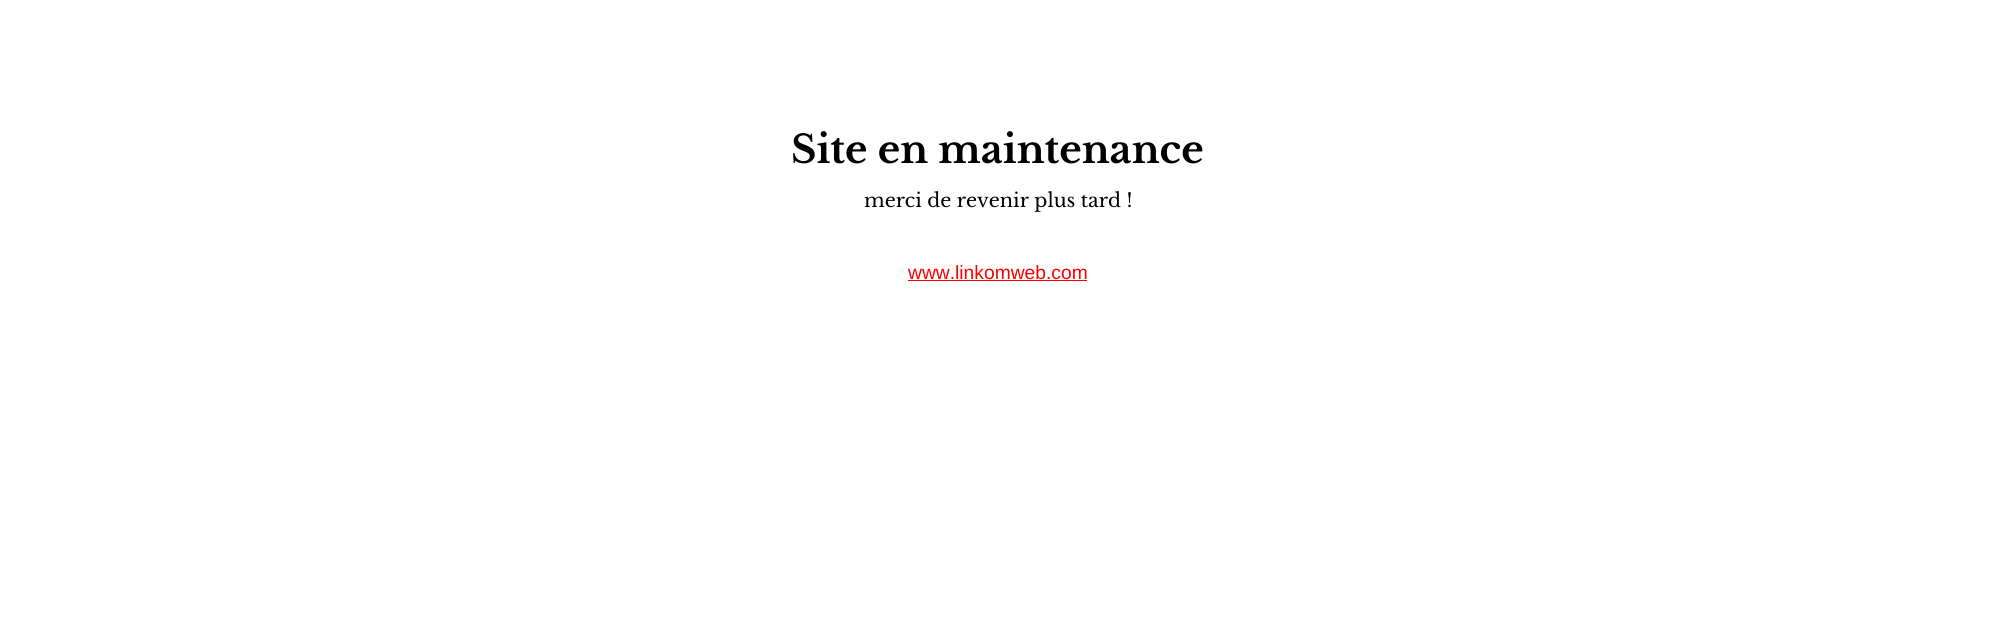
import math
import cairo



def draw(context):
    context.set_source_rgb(1, 1, 1)
    context.paint()
    context.set_source_rgb(1, 0, 0)
    context.rectangle(908, 280, 179, 1)
    context.fill()
    context.select_font_face("Libre Baskerville", cairo.FontSlant.NORMAL, cairo.FontWeight.BOLD)
    context.set_font_size(38.4)
    context.set_source_rgb(0, 0, 0)
    context.move_to(791, 163)
    context.show_text("Site en maintenance")
    context.select_font_face("Libre Baskerville")
    context.set_font_size(19.25)
    context.move_to(864, 207)
    context.show_text("merci de revenir plus tard !")
    context.select_font_face("Liberation Sans")
    context.set_source_rgb(1, 0, 0)
    context.move_to(908, 279)
    context.show_text("www.linkomweb.com")


surface = cairo.ImageSurface(cairo.Format.RGB24, 1995, 636)
context = cairo.Context(surface)
options = cairo.FontOptions()
options.set_hint_metrics(cairo.HintMetrics.OFF)
options.set_hint_style(cairo.HintStyle.NONE)
context.set_font_options(options)
context.set_miter_limit(4)
draw(context)
surface.write_to_png("out.png")
